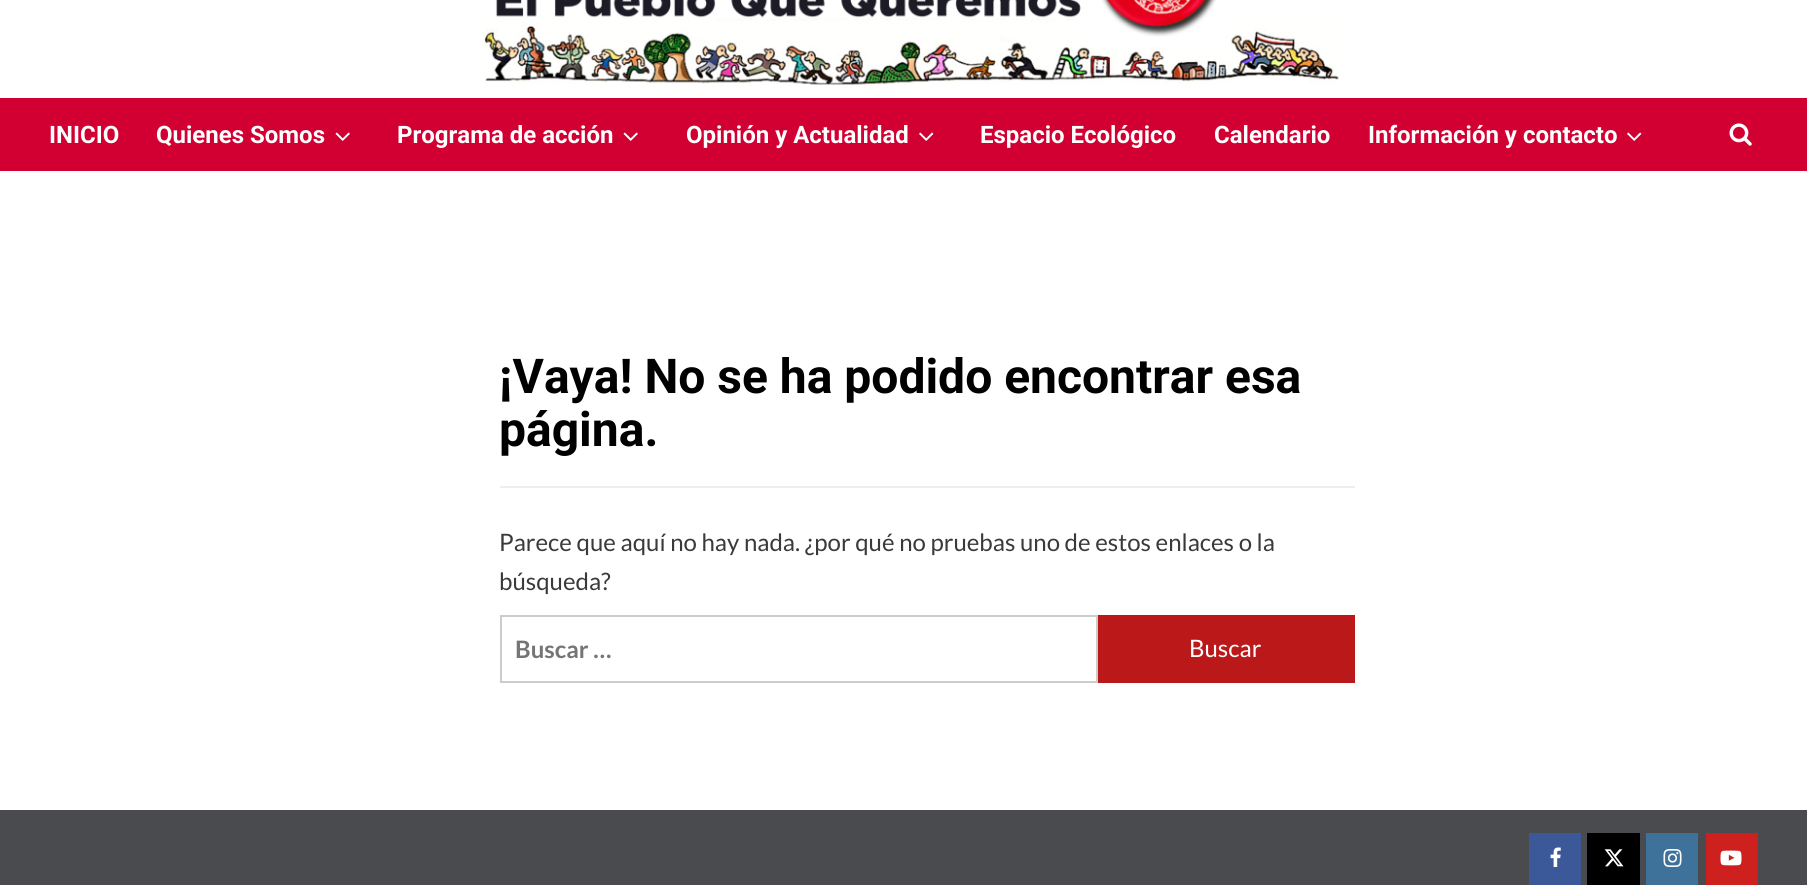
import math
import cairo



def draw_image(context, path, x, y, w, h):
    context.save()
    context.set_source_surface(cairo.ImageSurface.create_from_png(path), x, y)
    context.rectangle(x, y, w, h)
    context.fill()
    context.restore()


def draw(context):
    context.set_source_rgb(1, 1, 1)
    context.paint()
    draw_image(context, "images/1.png", 484, 0, 855, 85)
    context.set_source_rgb(210 / 255, 0, 50 / 255)
    context.rectangle(0, 98, 1807, 73)
    context.fill()
    draw_image(context, "images/2.png", 335, 132, 15, 9)
    draw_image(context, "images/2.png", 623, 132, 15, 9)
    draw_image(context, "images/3.png", 919, 132, 15, 9)
    draw_image(context, "images/3.png", 1627, 132, 15, 9)
    draw_image(context, "images/4.png", 1729, 123, 23, 23)
    context.set_source_rgb(238 / 255, 238 / 255, 238 / 255)
    context.rectangle(500, 486, 855, 2)
    context.fill()
    context.rectangle(501, 616, 596, 66)
    context.set_source_rgb(204 / 255, 204 / 255, 204 / 255)
    context.stroke()
    context.set_source_rgb(187 / 255, 25 / 255, 25 / 255)
    context.rectangle(1098, 615, 257, 68)
    context.fill()
    context.set_source_rgb(73 / 255, 75 / 255, 78 / 255)
    context.rectangle(0, 810, 1807, 75)
    context.fill()
    context.set_source_rgb(59 / 255, 89 / 255, 153 / 255)
    context.rectangle(1529, 833, 52, 52)
    context.fill()
    draw_image(context, "images/5.png", 1550, 847, 11, 20)
    context.set_source_rgb(0, 0, 0)
    context.rectangle(1587, 833, 53, 52)
    context.fill()
    draw_image(context, "images/6.png", 1604, 849, 20, 18)
    context.set_source_rgb(63 / 255, 114 / 255, 155 / 255)
    context.rectangle(1646, 833, 52, 52)
    context.fill()
    draw_image(context, "images/7.png", 1663, 849, 19, 18)
    context.set_source_rgb(205 / 255, 32 / 255, 31 / 255)
    context.rectangle(1706, 833, 52, 52)
    context.fill()
    draw_image(context, "images/8.png", 1720, 850, 22, 16)
    context.select_font_face("Roboto", cairo.FontSlant.NORMAL, cairo.FontWeight.BOLD)
    context.set_font_size(24)
    context.set_source_rgb(1, 1, 1)
    context.move_to(49, 143)
    context.show_text("INICIO")
    context.move_to(156, 143)
    context.show_text("Quienes Somos")
    context.move_to(397, 143)
    context.show_text("Programa de acción")
    context.move_to(686, 143)
    context.show_text("Opinión y Actualidad")
    context.move_to(980, 143)
    context.show_text("Espacio Ecológico")
    context.move_to(1214, 143)
    context.show_text("Calendario")
    context.move_to(1368, 143)
    context.show_text("Información y contacto")
    context.set_font_size(48)
    context.set_source_rgb(0, 0, 0)
    context.move_to(499, 393)
    context.show_text("¡Vaya! No se ha podido encontrar esa")
    context.move_to(499, 446)
    context.show_text("página.")
    context.select_font_face("Lato")
    context.set_font_size(24)
    context.set_source_rgb(58 / 255, 58 / 255, 58 / 255)
    context.move_to(499, 551)
    context.show_text("Parece que aquí no hay nada. ¿por qué no pruebas uno de estos enlaces o la")
    context.move_to(499, 590)
    context.show_text("búsqueda?")
    context.select_font_face("Lato", cairo.FontSlant.NORMAL, cairo.FontWeight.BOLD)
    context.set_source_rgb(117 / 255, 117 / 255, 117 / 255)
    context.move_to(515, 658)
    context.show_text("Buscar …")
    context.select_font_face("Lato")
    context.set_source_rgb(1, 1, 1)
    context.move_to(1189, 657)
    context.show_text("Buscar")


surface = cairo.ImageSurface(cairo.Format.RGB24, 1807, 885)
context = cairo.Context(surface)
options = cairo.FontOptions()
options.set_hint_metrics(cairo.HintMetrics.OFF)
options.set_hint_style(cairo.HintStyle.NONE)
context.set_font_options(options)
context.set_miter_limit(4)
draw(context)
surface.write_to_png("out.png")
